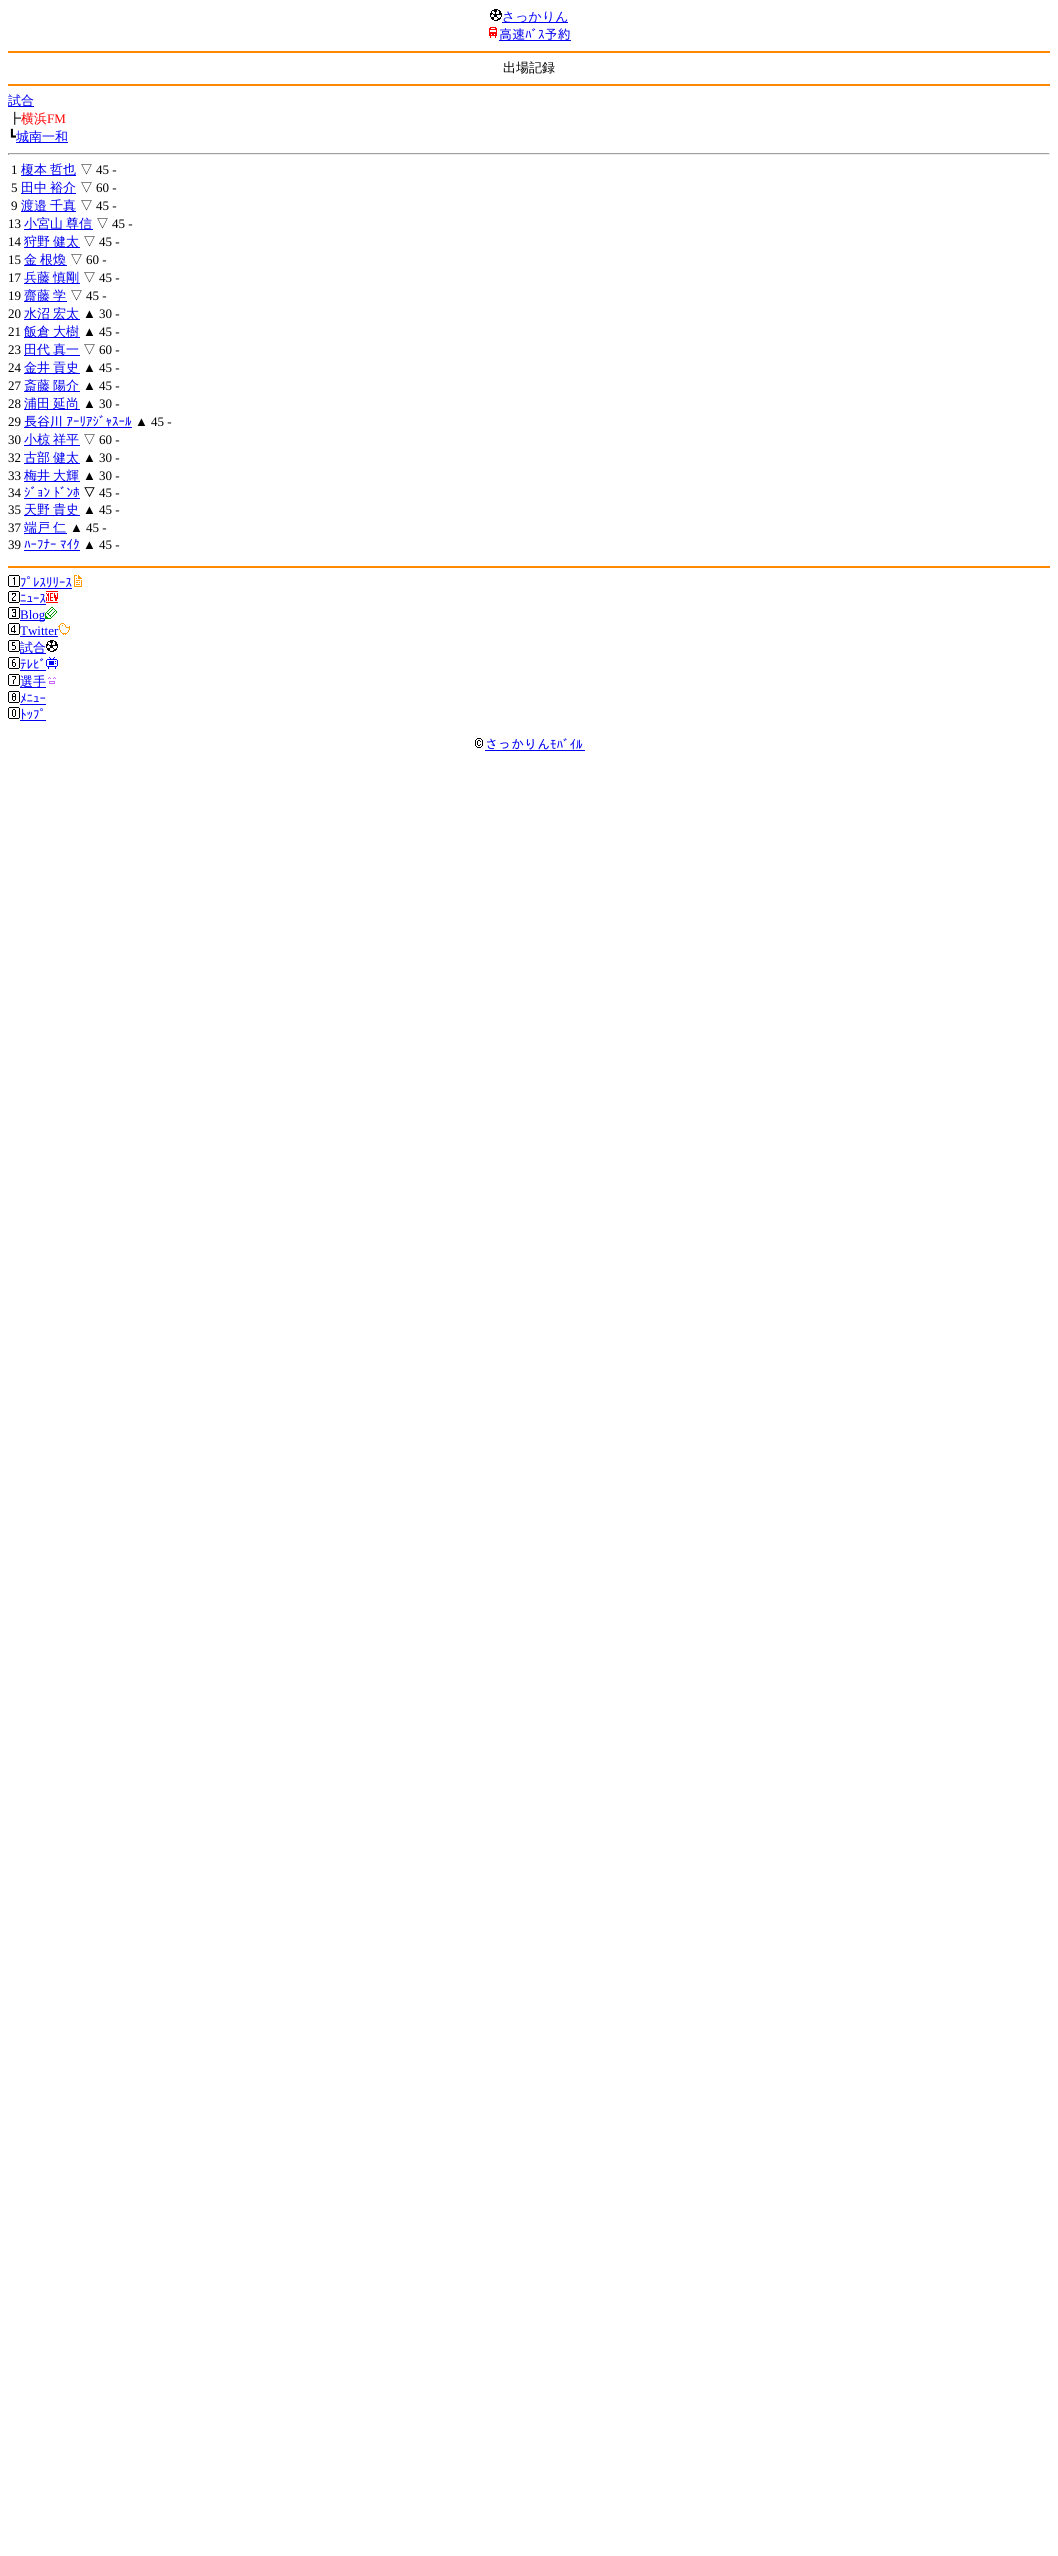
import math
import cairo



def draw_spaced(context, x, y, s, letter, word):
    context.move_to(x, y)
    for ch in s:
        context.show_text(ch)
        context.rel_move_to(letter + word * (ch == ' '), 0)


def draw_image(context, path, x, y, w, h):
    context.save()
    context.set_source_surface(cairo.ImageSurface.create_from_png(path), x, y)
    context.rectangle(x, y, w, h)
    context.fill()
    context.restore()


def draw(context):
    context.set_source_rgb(1, 1, 1)
    context.paint()
    draw_image(context, "images/1.png", 490, 9, 12, 12)
    context.set_source_rgb(0, 0, 238 / 255)
    context.rectangle(502, 22, 66, 1)
    context.fill()
    draw_image(context, "images/2.png", 489, 27, 8, 11)
    context.rectangle(499, 40, 72, 1)
    context.fill()
    context.set_source_rgb(1, 136 / 255, 0)
    context.rectangle(8, 51, 1042, 2)
    context.fill()
    context.rectangle(8, 84, 1042, 2)
    context.fill()
    context.set_source_rgb(0, 0, 238 / 255)
    context.rectangle(8, 106, 26, 1)
    context.fill()
    context.rectangle(16, 142, 52, 1)
    context.fill()
    context.set_source_rgb(159 / 255, 159 / 255, 159 / 255)
    context.rectangle(8, 153, 1042, 1)
    context.fill()
    context.set_source_rgb(238 / 255, 238 / 255, 238 / 255)
    context.rectangle(1049, 153, 1, 2)
    context.fill()
    context.rectangle(8, 154, 1042, 1)
    context.fill()
    context.set_source_rgb(159 / 255, 159 / 255, 159 / 255)
    context.rectangle(8, 153, 1, 2)
    context.fill()
    context.set_source_rgb(0, 0, 238 / 255)
    context.rectangle(21, 175, 55, 1)
    context.fill()
    context.rectangle(21, 193, 55, 1)
    context.fill()
    context.rectangle(21, 211, 55, 1)
    context.fill()
    context.rectangle(24, 229, 69, 1)
    context.fill()
    context.rectangle(24, 247, 56, 1)
    context.fill()
    context.rectangle(24, 265, 43, 1)
    context.fill()
    context.rectangle(24, 283, 56, 1)
    context.fill()
    context.rectangle(24, 301, 43, 1)
    context.fill()
    context.rectangle(24, 319, 56, 1)
    context.fill()
    context.rectangle(24, 337, 56, 1)
    context.fill()
    context.rectangle(24, 355, 56, 1)
    context.fill()
    context.rectangle(24, 373, 56, 1)
    context.fill()
    context.rectangle(24, 391, 56, 1)
    context.fill()
    context.rectangle(24, 409, 56, 1)
    context.fill()
    context.rectangle(24, 427, 108, 1)
    context.fill()
    context.rectangle(24, 445, 56, 1)
    context.fill()
    context.rectangle(24, 463, 56, 1)
    context.fill()
    context.rectangle(24, 481, 56, 1)
    context.fill()
    context.rectangle(24, 498, 56, 1)
    context.fill()
    context.rectangle(24, 515, 56, 1)
    context.fill()
    context.rectangle(24, 533, 43, 1)
    context.fill()
    context.rectangle(24, 550, 56, 1)
    context.fill()
    context.set_source_rgb(1, 136 / 255, 0)
    context.rectangle(8, 566, 1042, 2)
    context.fill()
    draw_image(context, "images/3.png", 8, 575, 12, 12)
    context.set_source_rgb(0, 0, 238 / 255)
    context.rectangle(20, 588, 52, 1)
    context.fill()
    draw_image(context, "images/4.png", 74, 575, 8, 12)
    draw_image(context, "images/5.png", 8, 591, 12, 12)
    context.rectangle(20, 604, 26, 1)
    context.fill()
    draw_image(context, "images/6.png", 46, 591, 12, 12)
    draw_image(context, "images/7.png", 8, 607, 12, 12)
    context.rectangle(20, 620, 25, 1)
    context.fill()
    draw_image(context, "images/9.png", 8, 623, 12, 12)
    context.rectangle(20, 636, 38, 1)
    context.fill()
    draw_image(context, "images/11.png", 8, 640, 12, 12)
    context.rectangle(20, 653, 26, 1)
    context.fill()
    draw_image(context, "images/1.png", 46, 640, 12, 12)
    draw_image(context, "images/12.png", 8, 657, 12, 12)
    context.rectangle(20, 670, 26, 1)
    context.fill()
    draw_image(context, "images/13.png", 46, 657, 12, 12)
    draw_image(context, "images/14.png", 8, 674, 12, 12)
    context.rectangle(20, 687, 26, 1)
    context.fill()
    draw_image(context, "images/15.png", 48, 677, 8, 7)
    draw_image(context, "images/16.png", 8, 691, 12, 12)
    context.rectangle(20, 704, 26, 1)
    context.fill()
    draw_image(context, "images/17.png", 8, 707, 12, 12)
    context.rectangle(20, 720, 26, 1)
    context.fill()
    draw_image(context, "images/18.png", 475, 738, 8, 10)
    context.rectangle(485, 750, 100, 1)
    context.fill()
    context.select_font_face("WenQuanYi Zen Hei Medium")
    context.set_font_size(13)
    context.set_source_rgb(0, 0, 1)
    context.move_to(502, 21)
    context.show_text("さっかりん")
    context.select_font_face("IPAGothic")
    context.set_source_rgb(0, 0, 238 / 255)
    context.move_to(499, 39)
    context.show_text("高速ﾊﾞｽ予約")
    context.select_font_face("WenQuanYi Zen Hei Medium")
    context.set_source_rgb(0, 0, 0)
    context.move_to(503, 72)
    context.show_text("出場記録")
    context.set_source_rgb(0, 0, 238 / 255)
    context.move_to(8, 105)
    context.show_text("試合")
    context.set_source_rgb(0, 0, 0)
    context.move_to(8, 123)
    context.show_text("┣")
    context.set_source_rgb(1, 0, 0)
    context.move_to(21, 123)
    context.show_text("横浜")
    context.select_font_face("Liberation Serif")
    context.move_to(47, 123)
    context.show_text("FM")
    context.select_font_face("DejaVu Sans")
    context.set_source_rgb(0, 0, 0)
    context.move_to(8, 141)
    context.show_text("┗")
    context.select_font_face("WenQuanYi Zen Hei Medium")
    context.set_source_rgb(0, 0, 1)
    context.move_to(16, 141)
    context.show_text("城南一和")
    context.select_font_face("Liberation Serif")
    context.set_source_rgb(0, 0, 0)
    context.move_to(11, 174)
    context.show_text("1")
    context.select_font_face("WenQuanYi Zen Hei Medium")
    context.set_source_rgb(0, 0, 238 / 255)
    draw_spaced(context, 21, 174, "榎本 哲也", 0, -1)
    context.set_source_rgb(0, 0, 0)
    context.move_to(80, 174)
    context.show_text("▽")
    context.select_font_face("Liberation Serif")
    context.move_to(96, 174)
    context.show_text("45 -")
    context.move_to(11, 192)
    context.show_text("5")
    context.select_font_face("WenQuanYi Zen Hei Medium")
    context.set_source_rgb(0, 0, 238 / 255)
    draw_spaced(context, 21, 192, "田中 裕介", 0, -1)
    context.set_source_rgb(0, 0, 0)
    context.move_to(80, 192)
    context.show_text("▽")
    context.select_font_face("Liberation Serif")
    context.move_to(96, 192)
    context.show_text("60 -")
    context.move_to(11, 210)
    context.show_text("9")
    context.select_font_face("WenQuanYi Zen Hei Medium")
    context.set_source_rgb(0, 0, 238 / 255)
    draw_spaced(context, 21, 210, "渡邉 千真", 0, -1)
    context.set_source_rgb(0, 0, 0)
    context.move_to(80, 210)
    context.show_text("▽")
    context.select_font_face("Liberation Serif")
    context.move_to(96, 210)
    context.show_text("45 -")
    context.move_to(8, 228)
    context.show_text("13")
    context.select_font_face("WenQuanYi Zen Hei Medium")
    context.set_source_rgb(0, 0, 238 / 255)
    draw_spaced(context, 24, 228, "小宮山 尊信", 0, -1)
    context.set_source_rgb(0, 0, 0)
    context.move_to(96, 228)
    context.show_text("▽")
    context.select_font_face("Liberation Serif")
    context.move_to(112, 228)
    context.show_text("45 -")
    context.move_to(8, 246)
    context.show_text("14")
    context.select_font_face("WenQuanYi Zen Hei Medium")
    context.set_source_rgb(0, 0, 238 / 255)
    draw_spaced(context, 24, 246, "狩野 健太", 0, -1)
    context.set_source_rgb(0, 0, 0)
    context.move_to(83, 246)
    context.show_text("▽")
    context.select_font_face("Liberation Serif")
    context.move_to(99, 246)
    context.show_text("45 -")
    context.move_to(8, 264)
    context.show_text("15")
    context.select_font_face("WenQuanYi Zen Hei Medium")
    context.set_source_rgb(0, 0, 238 / 255)
    draw_spaced(context, 24, 264, "金 根煥", 0, -1)
    context.set_source_rgb(0, 0, 0)
    context.move_to(70, 264)
    context.show_text("▽")
    context.select_font_face("Liberation Serif")
    context.move_to(86, 264)
    context.show_text("60 -")
    context.move_to(8, 282)
    context.show_text("17")
    context.select_font_face("WenQuanYi Zen Hei Medium")
    context.set_source_rgb(0, 0, 238 / 255)
    draw_spaced(context, 24, 282, "兵藤 慎剛", 0, -1)
    context.set_source_rgb(0, 0, 0)
    context.move_to(83, 282)
    context.show_text("▽")
    context.select_font_face("Liberation Serif")
    context.move_to(99, 282)
    context.show_text("45 -")
    context.move_to(8, 300)
    context.show_text("19")
    context.select_font_face("WenQuanYi Zen Hei Medium")
    context.set_source_rgb(0, 0, 238 / 255)
    draw_spaced(context, 24, 300, "齋藤 学", 0, -1)
    context.set_source_rgb(0, 0, 0)
    context.move_to(70, 300)
    context.show_text("▽")
    context.select_font_face("Liberation Serif")
    context.move_to(86, 300)
    context.show_text("45 -")
    context.move_to(8, 318)
    context.show_text("20")
    context.select_font_face("WenQuanYi Zen Hei Medium")
    context.set_source_rgb(0, 0, 238 / 255)
    draw_spaced(context, 24, 318, "水沼 宏太", 0, -1)
    context.select_font_face("Liberation Serif")
    context.set_source_rgb(0, 0, 0)
    context.move_to(83, 318)
    context.show_text("▲ 30 -")
    context.move_to(8, 336)
    context.show_text("21")
    context.select_font_face("WenQuanYi Zen Hei Medium")
    context.set_source_rgb(0, 0, 238 / 255)
    draw_spaced(context, 24, 336, "飯倉 大樹", 0, -1)
    context.select_font_face("Liberation Serif")
    context.set_source_rgb(0, 0, 0)
    context.move_to(83, 336)
    context.show_text("▲ 45 -")
    context.move_to(8, 354)
    context.show_text("23")
    context.select_font_face("WenQuanYi Zen Hei Medium")
    context.set_source_rgb(0, 0, 238 / 255)
    draw_spaced(context, 24, 354, "田代 真一", 0, -1)
    context.set_source_rgb(0, 0, 0)
    context.move_to(83, 354)
    context.show_text("▽")
    context.select_font_face("Liberation Serif")
    context.move_to(99, 354)
    context.show_text("60 -")
    context.move_to(8, 372)
    context.show_text("24")
    context.select_font_face("WenQuanYi Zen Hei Medium")
    context.set_source_rgb(0, 0, 238 / 255)
    draw_spaced(context, 24, 372, "金井 貢史", 0, -1)
    context.select_font_face("Liberation Serif")
    context.set_source_rgb(0, 0, 0)
    context.move_to(83, 372)
    context.show_text("▲ 45 -")
    context.move_to(8, 390)
    context.show_text("27")
    context.select_font_face("WenQuanYi Zen Hei Medium")
    context.set_source_rgb(0, 0, 238 / 255)
    draw_spaced(context, 24, 390, "斎藤 陽介", 0, -1)
    context.select_font_face("Liberation Serif")
    context.set_source_rgb(0, 0, 0)
    context.move_to(83, 390)
    context.show_text("▲ 45 -")
    context.move_to(8, 408)
    context.show_text("28")
    context.select_font_face("WenQuanYi Zen Hei Medium")
    context.set_source_rgb(0, 0, 238 / 255)
    draw_spaced(context, 24, 408, "浦田 延尚", 0, -1)
    context.select_font_face("Liberation Serif")
    context.set_source_rgb(0, 0, 0)
    context.move_to(83, 408)
    context.show_text("▲ 30 -")
    context.move_to(8, 426)
    context.show_text("29")
    context.select_font_face("IPAGothic")
    context.set_source_rgb(0, 0, 238 / 255)
    draw_spaced(context, 24, 426, "長谷川 ｱｰﾘｱｼﾞｬｽｰﾙ", 0, -3)
    context.select_font_face("Liberation Serif")
    context.set_source_rgb(0, 0, 0)
    context.move_to(135, 426)
    context.show_text("▲ 45 -")
    context.move_to(8, 444)
    context.show_text("30")
    context.select_font_face("WenQuanYi Zen Hei Medium")
    context.set_source_rgb(0, 0, 238 / 255)
    draw_spaced(context, 24, 444, "小椋 祥平", 0, -1)
    context.set_source_rgb(0, 0, 0)
    context.move_to(83, 444)
    context.show_text("▽")
    context.select_font_face("Liberation Serif")
    context.move_to(99, 444)
    context.show_text("60 -")
    context.move_to(8, 462)
    context.show_text("32")
    context.select_font_face("WenQuanYi Zen Hei Medium")
    context.set_source_rgb(0, 0, 238 / 255)
    draw_spaced(context, 24, 462, "古部 健太", 0, -1)
    context.select_font_face("Liberation Serif")
    context.set_source_rgb(0, 0, 0)
    context.move_to(83, 462)
    context.show_text("▲ 30 -")
    context.move_to(8, 480)
    context.show_text("33")
    context.select_font_face("WenQuanYi Zen Hei Medium")
    context.set_source_rgb(0, 0, 238 / 255)
    draw_spaced(context, 24, 480, "梅井 大輝", 0, -1)
    context.select_font_face("Liberation Serif")
    context.set_source_rgb(0, 0, 0)
    context.move_to(83, 480)
    context.show_text("▲ 30 -")
    context.move_to(8, 497)
    context.show_text("34")
    context.select_font_face("IPAGothic")
    context.set_source_rgb(0, 0, 238 / 255)
    draw_spaced(context, 24, 497, "ｼﾞｮﾝ ﾄﾞﾝﾎ", 0, -3)
    context.set_source_rgb(0, 0, 0)
    context.move_to(83, 497)
    context.show_text("▽")
    context.select_font_face("Liberation Serif")
    context.move_to(99, 497)
    context.show_text("45 -")
    context.move_to(8, 514)
    context.show_text("35")
    context.select_font_face("WenQuanYi Zen Hei Medium")
    context.set_source_rgb(0, 0, 238 / 255)
    draw_spaced(context, 24, 514, "天野 貴史", 0, -1)
    context.select_font_face("Liberation Serif")
    context.set_source_rgb(0, 0, 0)
    context.move_to(83, 514)
    context.show_text("▲ 45 -")
    context.move_to(8, 532)
    context.show_text("37")
    context.select_font_face("WenQuanYi Zen Hei Medium")
    context.set_source_rgb(0, 0, 238 / 255)
    draw_spaced(context, 24, 532, "端戸 仁", 0, -1)
    context.select_font_face("Liberation Serif")
    context.set_source_rgb(0, 0, 0)
    context.move_to(70, 532)
    context.show_text("▲ 45 -")
    context.move_to(8, 549)
    context.show_text("39")
    context.select_font_face("IPAGothic")
    context.set_source_rgb(0, 0, 238 / 255)
    draw_spaced(context, 24, 549, "ﾊｰﾌﾅｰ ﾏｲｸ", 0, -3)
    context.select_font_face("Liberation Serif")
    context.set_source_rgb(0, 0, 0)
    context.move_to(83, 549)
    context.show_text("▲ 45 -")
    context.select_font_face("IPAGothic")
    context.set_source_rgb(0, 0, 1)
    context.move_to(20, 587)
    context.show_text("ﾌﾟﾚｽﾘﾘｰｽ")
    context.move_to(20, 603)
    context.show_text("ﾆｭｰｽ")
    context.select_font_face("Liberation Serif")
    context.move_to(20, 619)
    context.show_text("Blog")
    draw_image(context, "images/8.png", 45, 607, 12, 12)
    context.move_to(20, 635)
    context.show_text("Twitter")
    draw_image(context, "images/10.png", 58, 623, 12, 12)
    context.select_font_face("WenQuanYi Zen Hei Medium")
    context.move_to(20, 652)
    context.show_text("試合")
    context.select_font_face("IPAGothic")
    context.move_to(20, 669)
    context.show_text("ﾃﾚﾋﾞ")
    context.select_font_face("WenQuanYi Zen Hei Medium")
    context.move_to(20, 686)
    context.show_text("選手")
    context.select_font_face("IPAGothic")
    context.move_to(20, 703)
    context.show_text("ﾒﾆｭｰ")
    context.move_to(20, 719)
    context.show_text("ﾄｯﾌﾟ")
    context.set_source_rgb(0, 0, 238 / 255)
    context.move_to(485, 749)
    context.show_text("さっかりんﾓﾊﾞｲﾙ")


surface = cairo.ImageSurface(cairo.Format.RGB24, 1058, 2556)
context = cairo.Context(surface)
options = cairo.FontOptions()
options.set_hint_metrics(cairo.HintMetrics.OFF)
options.set_hint_style(cairo.HintStyle.NONE)
context.set_font_options(options)
context.set_miter_limit(4)
draw(context)
surface.write_to_png("out.png")
